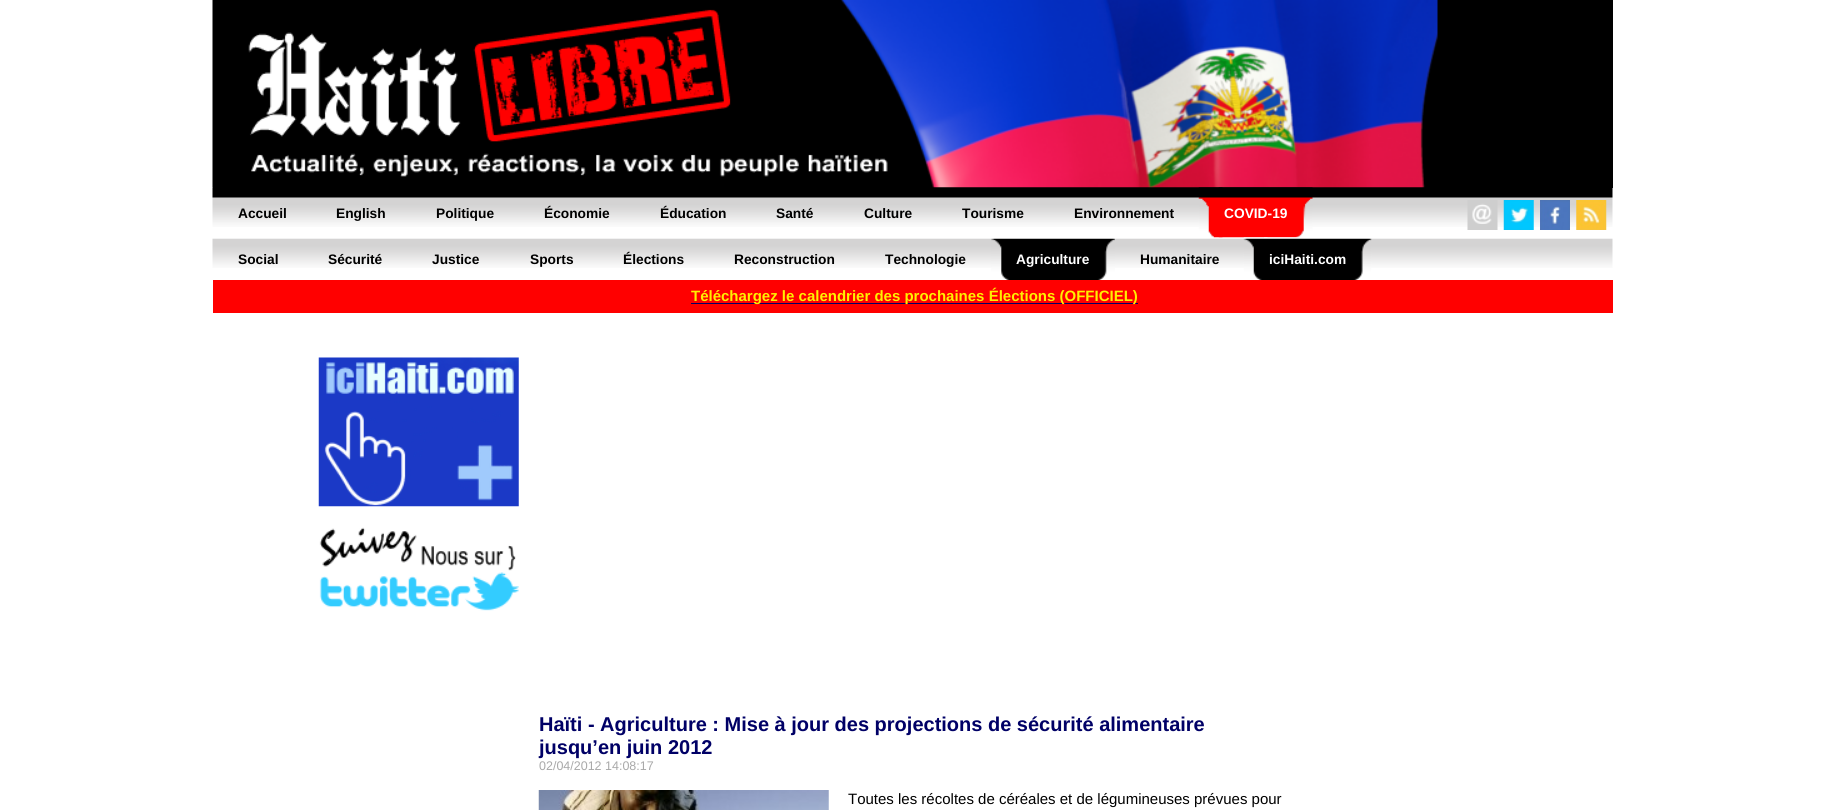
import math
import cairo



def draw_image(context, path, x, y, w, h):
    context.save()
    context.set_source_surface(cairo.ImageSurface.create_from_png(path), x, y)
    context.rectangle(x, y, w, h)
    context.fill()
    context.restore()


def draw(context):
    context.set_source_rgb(1, 1, 1)
    context.paint()
    context.set_source_rgb(0, 0, 0)
    context.rectangle(213, 0, 1400, 188)
    context.fill()
    draw_image(context, "images/1.png", 212, 0, 1226, 188)
    draw_image(context, "images/2.png", 212, 187, 1238, 40)
    draw_image(context, "images/3.png", 1198, 187, 25, 51)
    draw_image(context, "images/4.png", 1218, 187, 95, 51)
    draw_image(context, "images/5.png", 1450, 188, 163, 39)
    draw_image(context, "images/6.png", 1467, 200, 31, 30)
    draw_image(context, "images/7.png", 1503, 200, 31, 30)
    draw_image(context, "images/8.png", 1540, 200, 30, 30)
    draw_image(context, "images/9.png", 1576, 200, 31, 30)
    draw_image(context, "images/10.png", 212, 237, 1401, 31)
    draw_image(context, "images/11.png", 991, 238, 24, 42)
    draw_image(context, "images/12.png", 1015, 238, 100, 42)
    draw_image(context, "images/13.png", 1243, 237, 25, 43)
    draw_image(context, "images/14.png", 1264, 237, 108, 43)
    context.set_source_rgb(1, 0, 0)
    context.rectangle(213, 280, 1400, 33)
    context.fill()
    context.set_source_rgb(0, 0, 102 / 255)
    context.rectangle(691, 303, 447, 1)
    context.fill()
    draw_image(context, "images/15.png", 318, 357, 201, 150)
    draw_image(context, "images/16.png", 319, 527, 200, 84)
    draw_image(context, "images/17.png", 538, 790, 291, 20)
    context.select_font_face("Liberation Sans", cairo.FontSlant.NORMAL, cairo.FontWeight.BOLD)
    context.set_font_size(13.75)
    context.set_source_rgb(0, 0, 0)
    context.move_to(238, 218)
    context.show_text("Accueil")
    context.move_to(336, 218)
    context.show_text("English")
    context.move_to(436, 218)
    context.show_text("Politique")
    context.move_to(544, 218)
    context.show_text("Économie")
    context.move_to(660, 218)
    context.show_text("Éducation")
    context.move_to(776, 218)
    context.show_text("Santé")
    context.move_to(864, 218)
    context.show_text("Culture")
    context.move_to(962, 218)
    context.show_text("Tourisme")
    context.move_to(1074, 218)
    context.show_text("Environnement")
    context.set_source_rgb(1, 1, 1)
    context.move_to(1224, 218)
    context.show_text("COVID-19")
    context.set_source_rgb(0, 0, 0)
    context.move_to(238, 264)
    context.show_text("Social")
    context.move_to(328, 264)
    context.show_text("Sécurité")
    context.move_to(432, 264)
    context.show_text("Justice")
    context.move_to(530, 264)
    context.show_text("Sports")
    context.move_to(623, 264)
    context.show_text("Élections")
    context.move_to(734, 264)
    context.show_text("Reconstruction")
    context.move_to(885, 264)
    context.show_text("Technologie")
    context.set_source_rgb(1, 1, 1)
    context.move_to(1016, 264)
    context.show_text("Agriculture")
    context.set_source_rgb(0, 0, 0)
    context.move_to(1140, 264)
    context.show_text("Humanitaire")
    context.set_source_rgb(1, 1, 1)
    context.move_to(1269, 264)
    context.show_text("iciHaiti.com")
    context.set_font_size(15)
    context.set_source_rgb(1, 240 / 255, 0)
    context.move_to(691, 301)
    context.show_text("Téléchargez le calendrier des prochaines Élections (OFFICIEL)")
    context.set_font_size(20)
    context.set_source_rgb(0, 0, 102 / 255)
    context.move_to(539, 731)
    context.show_text("Haïti - Agriculture : Mise à jour des projections de sécurité alimentaire")
    context.move_to(539, 754)
    context.show_text("jusqu’en juin 2012")
    context.select_font_face("Liberation Sans")
    context.set_font_size(12.5)
    context.set_source_rgb(169 / 255, 169 / 255, 169 / 255)
    context.move_to(539, 770)
    context.show_text("02/04/2012 14:08:17")
    context.set_font_size(15)
    context.set_source_rgb(0, 0, 0)
    context.move_to(848, 804)
    context.show_text("Toutes les récoltes de céréales et de légumineuses prévues pour")


surface = cairo.ImageSurface(cairo.Format.RGB24, 1825, 810)
context = cairo.Context(surface)
options = cairo.FontOptions()
options.set_hint_metrics(cairo.HintMetrics.OFF)
options.set_hint_style(cairo.HintStyle.NONE)
context.set_font_options(options)
context.set_miter_limit(4)
draw(context)
surface.write_to_png("out.png")
